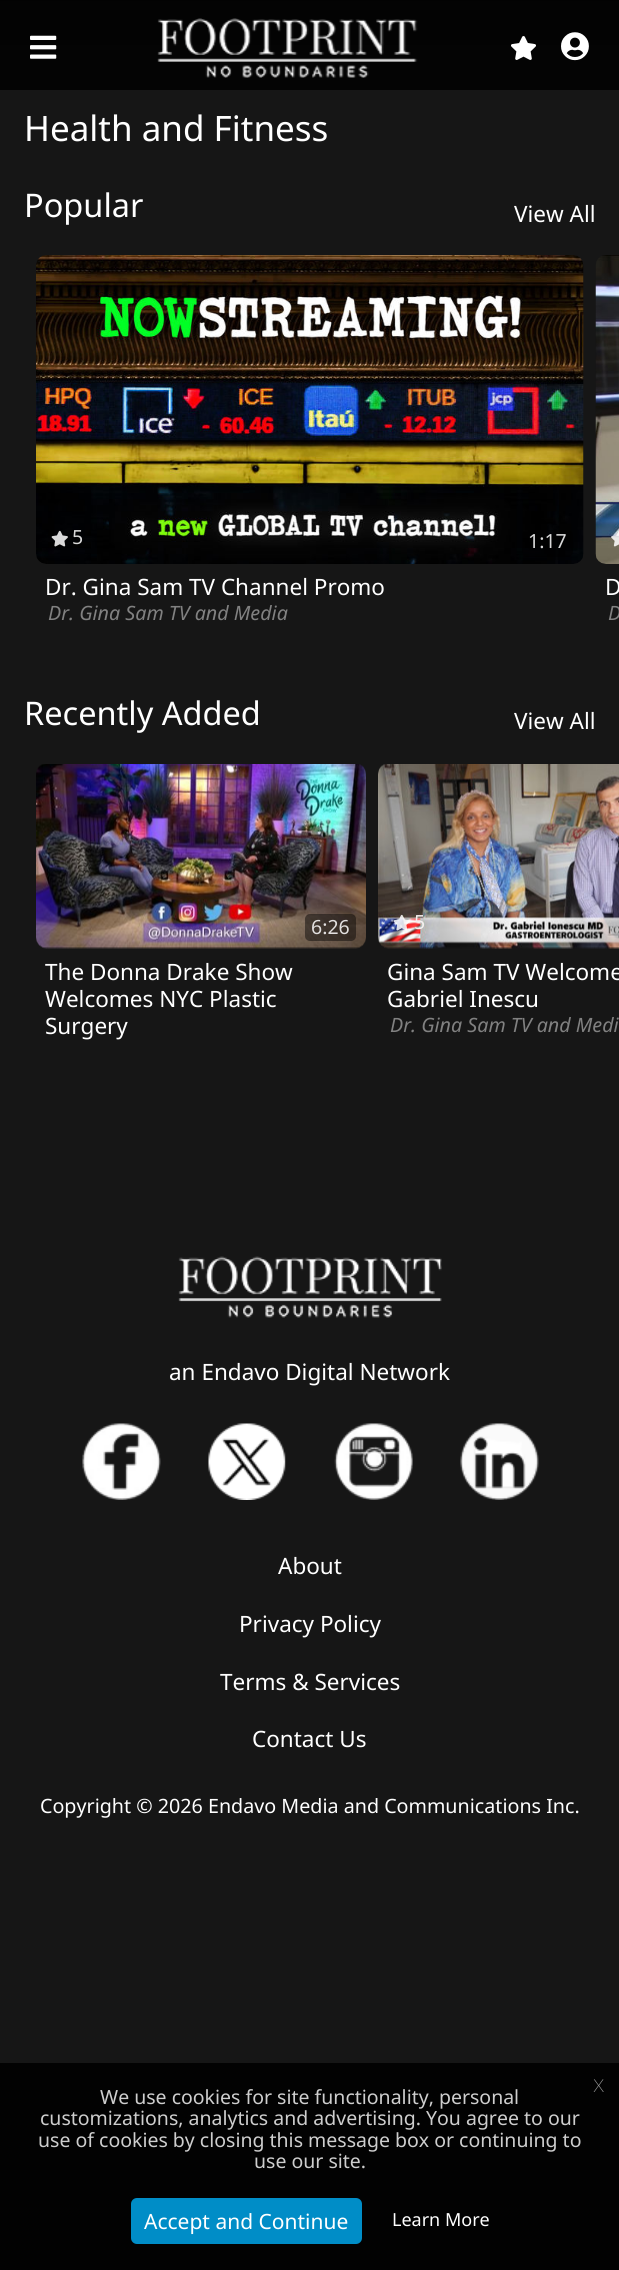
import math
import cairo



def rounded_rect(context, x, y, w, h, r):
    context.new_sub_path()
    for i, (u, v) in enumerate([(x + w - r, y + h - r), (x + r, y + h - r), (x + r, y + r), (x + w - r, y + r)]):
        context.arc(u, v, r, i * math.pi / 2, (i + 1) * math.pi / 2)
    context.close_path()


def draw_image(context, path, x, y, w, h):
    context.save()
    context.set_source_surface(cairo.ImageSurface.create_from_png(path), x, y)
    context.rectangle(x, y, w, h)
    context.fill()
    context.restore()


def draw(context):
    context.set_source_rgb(22 / 255, 22 / 255, 22 / 255)
    context.paint()
    gradient = cairo.LinearGradient(310, 0, 310, 90)
    gradient.add_color_stop_rgba(0, 0, 0, 0, 1)
    gradient.add_color_stop_rgba(0.01, 3 / 255, 3 / 255, 3 / 255, 1)
    gradient.add_color_stop_rgba(1, 4 / 255, 4 / 255, 4 / 255, 1)
    context.set_source(gradient)
    context.rectangle(0, 0, 619, 90)
    context.fill()
    draw_image(context, "images/1.png", 30, 35, 27, 24)
    draw_image(context, "images/2.png", 157, 18, 261, 60)
    draw_image(context, "images/3.png", 511, 36, 25, 24)
    draw_image(context, "images/4.png", 561, 32, 28, 29)
    draw_image(context, "images/5.png", 36, 255, 548, 309)
    draw_image(context, "images/6.png", 51, 530, 17, 17)
    context.set_source_rgba(0, 0, 0, 0.45)
    rounded_rect(context, 522, 530, 51, 27, 5)
    context.fill()
    draw_image(context, "images/7.png", 595, 255, 24, 309)
    draw_image(context, "images/8.png", 611, 531, 8, 16)
    draw_image(context, "images/9.png", 36, 764, 330, 185)
    rounded_rect(context, 305, 914, 51, 27, 5)
    context.fill()
    draw_image(context, "images/10.png", 378, 764, 241, 185)
    draw_image(context, "images/11.png", 393, 914, 17, 17)
    draw_image(context, "images/12.png", 178, 1256, 264, 62)
    draw_image(context, "images/13.png", 82, 1423, 79, 77)
    draw_image(context, "images/14.png", 208, 1423, 78, 77)
    draw_image(context, "images/15.png", 334, 1423, 79, 77)
    draw_image(context, "images/16.png", 460, 1423, 79, 77)
    context.set_source_rgb(2 / 255, 2 / 255, 2 / 255)
    context.rectangle(0, 2063, 619, 207)
    context.fill()
    context.set_source_rgb(0, 141 / 255, 199 / 255)
    rounded_rect(context, 132, 2199, 229, 44, 5)
    context.fill_preserve()
    context.stroke()
    context.select_font_face("Noto Sans")
    context.set_font_size(35)
    context.set_source_rgb(1, 1, 1)
    context.move_to(24, 141)
    context.show_text("Health and Fitness")
    context.set_font_size(32.5)
    context.move_to(24, 217)
    context.show_text("Popular")
    context.set_font_size(22.5)
    context.move_to(514, 222)
    context.show_text("View All")
    context.set_font_size(19.5)
    context.set_source_rgb(217 / 255, 217 / 255, 217 / 255)
    context.move_to(72, 544)
    context.show_text("5")
    context.move_to(528, 548)
    context.show_text("1:17")
    context.set_font_size(22.5)
    context.set_source_rgb(1, 1, 1)
    context.move_to(45, 595)
    context.show_text("Dr. Gina Sam TV Channel Promo")
    context.select_font_face("Noto Sans", cairo.FontSlant.ITALIC)
    context.set_font_size(19.7)
    context.set_source_rgb(129 / 255, 129 / 255, 129 / 255)
    context.move_to(48, 620)
    context.show_text("Dr. Gina Sam TV and Media")
    context.select_font_face("Noto Sans")
    context.set_font_size(22.5)
    context.set_source_rgb(1, 1, 1)
    context.move_to(605, 595)
    context.show_text("D")
    context.select_font_face("Noto Sans", cairo.FontSlant.ITALIC)
    context.set_font_size(19.7)
    context.set_source_rgb(129 / 255, 129 / 255, 129 / 255)
    context.move_to(608, 620)
    context.show_text("D")
    context.select_font_face("Noto Sans")
    context.set_font_size(32.5)
    context.set_source_rgb(1, 1, 1)
    context.move_to(24, 725)
    context.show_text("Recently Added")
    context.set_font_size(22.5)
    context.move_to(514, 729)
    context.show_text("View All")
    context.set_font_size(19.5)
    context.set_source_rgb(226 / 255, 224 / 255, 223 / 255)
    context.move_to(311, 934)
    context.show_text("6:26")
    context.set_font_size(22.5)
    context.set_source_rgb(1, 1, 1)
    context.move_to(45, 980)
    context.show_text("The Donna Drake Show")
    context.move_to(45, 1007)
    context.show_text("Welcomes NYC Plastic")
    context.move_to(45, 1034)
    context.show_text("Surgery")
    context.set_font_size(19.5)
    context.set_source_rgb(244 / 255, 240 / 255, 239 / 255)
    context.move_to(414, 929)
    context.show_text("5")
    context.set_font_size(22.5)
    context.set_source_rgb(1, 1, 1)
    context.move_to(387, 980)
    context.show_text("Gina Sam TV Welcome")
    context.move_to(387, 1007)
    context.show_text("Gabriel Inescu")
    context.select_font_face("Noto Sans", cairo.FontSlant.ITALIC)
    context.set_font_size(19.7)
    context.set_source_rgb(129 / 255, 129 / 255, 129 / 255)
    context.move_to(390, 1032)
    context.show_text("Dr. Gina Sam TV and Medi")
    context.select_font_face("Noto Sans")
    context.set_font_size(22.5)
    context.set_source_rgb(1, 1, 1)
    context.move_to(169, 1380)
    context.show_text("an Endavo Digital Network")
    context.move_to(278, 1574)
    context.show_text("About")
    context.move_to(239, 1632)
    context.show_text("Privacy Policy")
    context.move_to(220, 1690)
    context.show_text("Terms & Services")
    context.move_to(252, 1747)
    context.show_text("Contact Us")
    context.set_font_size(19.7)
    context.move_to(40, 1813)
    context.show_text("Copyright © 2026 Endavo Media and Communications Inc.")
    context.select_font_face("Noto Sans Thin")
    context.set_font_size(24)
    context.set_source_rgb(162 / 255, 162 / 255, 162 / 255)
    context.move_to(593, 2092)
    context.show_text("x")
    context.select_font_face("Noto Sans")
    context.set_font_size(19.5)
    context.set_source_rgb(206 / 255, 206 / 255, 206 / 255)
    context.move_to(100, 2104)
    context.show_text("We use cookies for site functionality, personal")
    context.move_to(40, 2125)
    context.show_text("customizations, analytics and advertising. You agree to our")
    context.move_to(38, 2147)
    context.show_text("use of cookies by closing this message box or continuing to")
    context.move_to(254, 2168)
    context.show_text("use our site.")
    context.set_font_size(21)
    context.set_source_rgb(1, 1, 1)
    context.move_to(144, 2229)
    context.show_text("Accept and Continue")
    context.set_font_size(18)
    context.move_to(392, 2226)
    context.show_text("Learn More")


surface = cairo.ImageSurface(cairo.Format.RGB24, 619, 2270)
context = cairo.Context(surface)
options = cairo.FontOptions()
options.set_hint_metrics(cairo.HintMetrics.OFF)
options.set_hint_style(cairo.HintStyle.NONE)
context.set_font_options(options)
context.set_miter_limit(4)
draw(context)
surface.write_to_png("out.png")
